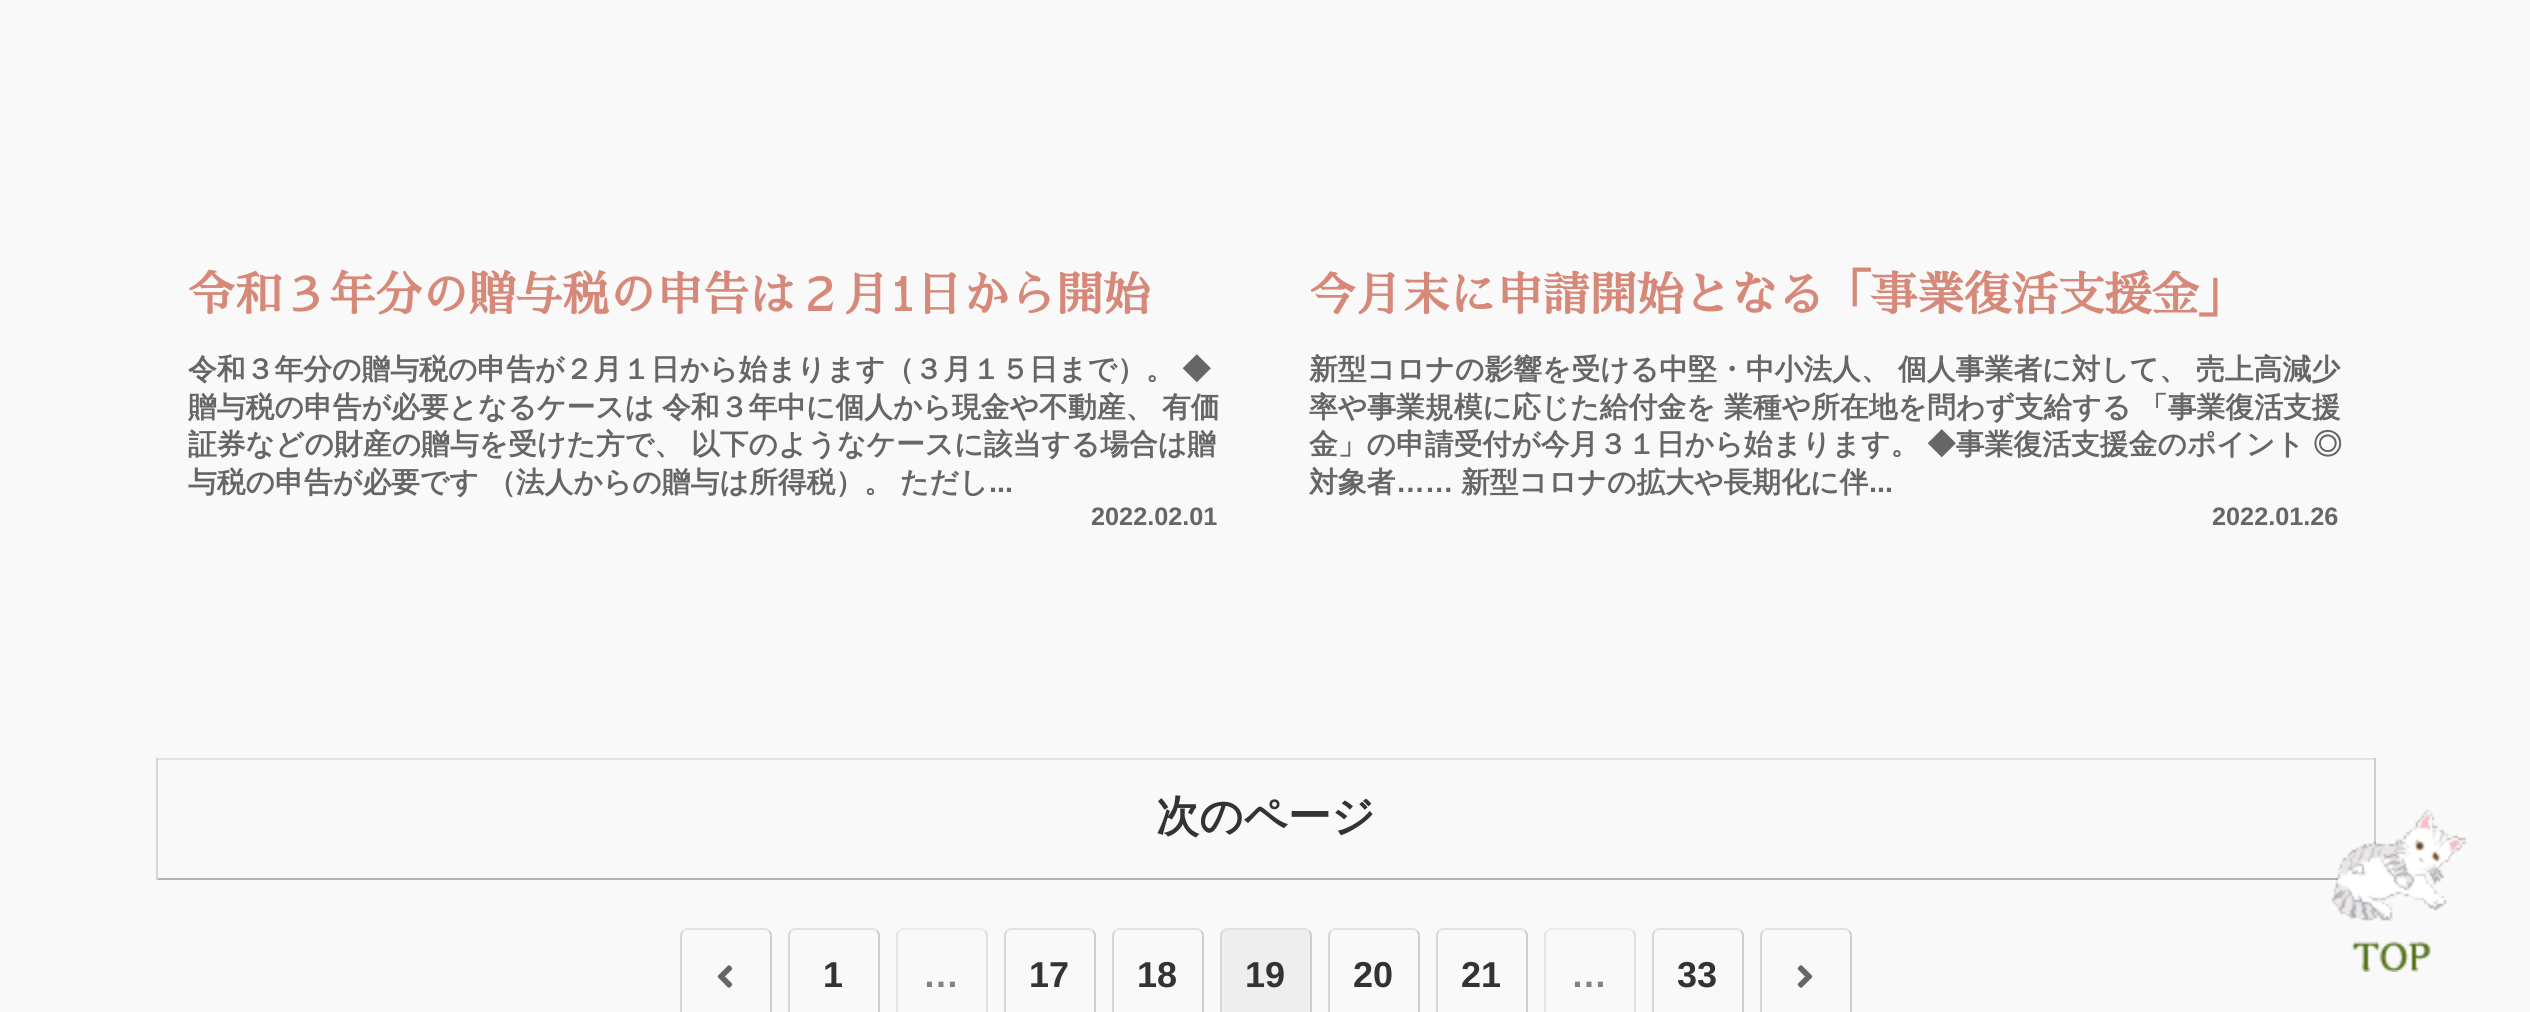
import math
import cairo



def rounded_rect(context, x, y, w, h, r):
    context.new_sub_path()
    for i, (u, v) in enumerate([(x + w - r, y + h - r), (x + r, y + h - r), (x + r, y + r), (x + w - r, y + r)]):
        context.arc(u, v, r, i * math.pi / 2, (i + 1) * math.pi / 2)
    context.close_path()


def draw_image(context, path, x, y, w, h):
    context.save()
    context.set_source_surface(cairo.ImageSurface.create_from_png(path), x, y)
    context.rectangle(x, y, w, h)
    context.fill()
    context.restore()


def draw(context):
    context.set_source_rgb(249 / 255, 249 / 255, 249 / 255)
    context.paint()
    context.set_source_rgb(227 / 255, 227 / 255, 227 / 255)
    context.rectangle(156, 758, 2220, 2)
    context.fill()
    context.set_source_rgb(206 / 255, 206 / 255, 206 / 255)
    context.rectangle(2374, 758, 2, 122)
    context.fill()
    context.set_source_rgb(180 / 255, 180 / 255, 180 / 255)
    context.rectangle(156, 878, 2220, 2)
    context.fill()
    context.set_source_rgb(214 / 255, 214 / 255, 214 / 255)
    context.rectangle(156, 758, 2, 122)
    context.fill()
    context.new_path()
    context.move_to(683, 931)
    context.curve_to(684.5, 929.5, 686, 929, 688, 929)
    context.line_to(764, 929)
    context.curve_to(766, 929, 767.5, 929.5, 769, 931)
    context.set_source_rgb(227 / 255, 227 / 255, 227 / 255)
    context.stroke()
    context.new_path()
    context.move_to(769, 931)
    context.curve_to(770.5, 932.5, 771, 934, 771, 936)
    context.line_to(771, 1012)
    context.curve_to(771, 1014, 770.5, 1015.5, 769, 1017)
    context.set_source_rgb(206 / 255, 206 / 255, 206 / 255)
    context.stroke()
    context.new_path()
    context.move_to(683, 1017)
    context.curve_to(681.5, 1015.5, 681, 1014, 681, 1012)
    context.line_to(681, 936)
    context.curve_to(681, 934, 681.5, 932.5, 683, 931)
    context.set_source_rgb(214 / 255, 214 / 255, 214 / 255)
    context.stroke()
    draw_image(context, "images/1.png", 717, 965, 16, 23)
    context.new_path()
    context.move_to(791, 931)
    context.curve_to(792.5, 929.5, 794, 929, 796, 929)
    context.line_to(872, 929)
    context.curve_to(874, 929, 875.5, 929.5, 877, 931)
    context.set_source_rgb(227 / 255, 227 / 255, 227 / 255)
    context.stroke()
    context.new_path()
    context.move_to(877, 931)
    context.curve_to(878.5, 932.5, 879, 934, 879, 936)
    context.line_to(879, 1012)
    context.curve_to(879, 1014, 878.5, 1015.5, 877, 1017)
    context.set_source_rgb(206 / 255, 206 / 255, 206 / 255)
    context.stroke()
    context.new_path()
    context.move_to(791, 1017)
    context.curve_to(789.5, 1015.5, 789, 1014, 789, 1012)
    context.line_to(789, 936)
    context.curve_to(789, 934, 789.5, 932.5, 791, 931)
    context.set_source_rgb(214 / 255, 214 / 255, 214 / 255)
    context.stroke()
    context.new_path()
    context.move_to(899, 931)
    context.curve_to(900.5, 929.5, 902, 929, 904, 929)
    context.line_to(980, 929)
    context.curve_to(982, 929, 983.5, 929.5, 985, 931)
    context.set_source_rgb(236 / 255, 236 / 255, 236 / 255)
    context.stroke()
    context.new_path()
    context.move_to(985, 931)
    context.curve_to(986.5, 932.5, 987, 934, 987, 936)
    context.line_to(987, 1012)
    context.curve_to(987, 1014, 986.5, 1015.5, 985, 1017)
    context.set_source_rgb(223 / 255, 223 / 255, 223 / 255)
    context.stroke()
    context.new_path()
    context.move_to(899, 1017)
    context.curve_to(897.5, 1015.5, 897, 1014, 897, 1012)
    context.line_to(897, 936)
    context.curve_to(897, 934, 897.5, 932.5, 899, 931)
    context.set_source_rgb(228 / 255, 228 / 255, 228 / 255)
    context.stroke()
    context.new_path()
    context.move_to(1007, 931)
    context.curve_to(1008.5, 929.5, 1010, 929, 1012, 929)
    context.line_to(1088, 929)
    context.curve_to(1090, 929, 1091.5, 929.5, 1093, 931)
    context.set_source_rgb(227 / 255, 227 / 255, 227 / 255)
    context.stroke()
    context.new_path()
    context.move_to(1093, 931)
    context.curve_to(1094.5, 932.5, 1095, 934, 1095, 936)
    context.line_to(1095, 1012)
    context.curve_to(1095, 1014, 1094.5, 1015.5, 1093, 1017)
    context.set_source_rgb(206 / 255, 206 / 255, 206 / 255)
    context.stroke()
    context.new_path()
    context.move_to(1007, 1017)
    context.curve_to(1005.5, 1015.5, 1005, 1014, 1005, 1012)
    context.line_to(1005, 936)
    context.curve_to(1005, 934, 1005.5, 932.5, 1007, 931)
    context.set_source_rgb(214 / 255, 214 / 255, 214 / 255)
    context.stroke()
    context.new_path()
    context.move_to(1115, 931)
    context.curve_to(1116.5, 929.5, 1118, 929, 1120, 929)
    context.line_to(1196, 929)
    context.curve_to(1198, 929, 1199.5, 929.5, 1201, 931)
    context.set_source_rgb(227 / 255, 227 / 255, 227 / 255)
    context.stroke()
    context.new_path()
    context.move_to(1201, 931)
    context.curve_to(1202.5, 932.5, 1203, 934, 1203, 936)
    context.line_to(1203, 1012)
    context.curve_to(1203, 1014, 1202.5, 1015.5, 1201, 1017)
    context.set_source_rgb(206 / 255, 206 / 255, 206 / 255)
    context.stroke()
    context.new_path()
    context.move_to(1115, 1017)
    context.curve_to(1113.5, 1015.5, 1113, 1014, 1113, 1012)
    context.line_to(1113, 936)
    context.curve_to(1113, 934, 1113.5, 932.5, 1115, 931)
    context.set_source_rgb(214 / 255, 214 / 255, 214 / 255)
    context.stroke()
    context.set_source_rgb(238 / 255, 238 / 255, 238 / 255)
    rounded_rect(context, 1220, 928, 92, 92, 8)
    context.fill()
    context.new_path()
    context.move_to(1223, 931)
    context.curve_to(1224.5, 929.5, 1226, 929, 1228, 929)
    context.line_to(1304, 929)
    context.curve_to(1306, 929, 1307.5, 929.5, 1309, 931)
    context.set_source_rgb(227 / 255, 227 / 255, 227 / 255)
    context.stroke()
    context.new_path()
    context.move_to(1309, 931)
    context.curve_to(1310.5, 932.5, 1311, 934, 1311, 936)
    context.line_to(1311, 1012)
    context.curve_to(1311, 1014, 1310.5, 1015.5, 1309, 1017)
    context.set_source_rgb(206 / 255, 206 / 255, 206 / 255)
    context.stroke()
    context.new_path()
    context.move_to(1223, 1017)
    context.curve_to(1221.5, 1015.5, 1221, 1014, 1221, 1012)
    context.line_to(1221, 936)
    context.curve_to(1221, 934, 1221.5, 932.5, 1223, 931)
    context.set_source_rgb(214 / 255, 214 / 255, 214 / 255)
    context.stroke()
    context.new_path()
    context.move_to(1331, 931)
    context.curve_to(1332.5, 929.5, 1334, 929, 1336, 929)
    context.line_to(1412, 929)
    context.curve_to(1414, 929, 1415.5, 929.5, 1417, 931)
    context.set_source_rgb(227 / 255, 227 / 255, 227 / 255)
    context.stroke()
    context.new_path()
    context.move_to(1417, 931)
    context.curve_to(1418.5, 932.5, 1419, 934, 1419, 936)
    context.line_to(1419, 1012)
    context.curve_to(1419, 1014, 1418.5, 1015.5, 1417, 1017)
    context.set_source_rgb(206 / 255, 206 / 255, 206 / 255)
    context.stroke()
    context.new_path()
    context.move_to(1331, 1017)
    context.curve_to(1329.5, 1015.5, 1329, 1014, 1329, 1012)
    context.line_to(1329, 936)
    context.curve_to(1329, 934, 1329.5, 932.5, 1331, 931)
    context.set_source_rgb(214 / 255, 214 / 255, 214 / 255)
    context.stroke()
    context.new_path()
    context.move_to(1439, 931)
    context.curve_to(1440.5, 929.5, 1442, 929, 1444, 929)
    context.line_to(1520, 929)
    context.curve_to(1522, 929, 1523.5, 929.5, 1525, 931)
    context.set_source_rgb(227 / 255, 227 / 255, 227 / 255)
    context.stroke()
    context.new_path()
    context.move_to(1525, 931)
    context.curve_to(1526.5, 932.5, 1527, 934, 1527, 936)
    context.line_to(1527, 1012)
    context.curve_to(1527, 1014, 1526.5, 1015.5, 1525, 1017)
    context.set_source_rgb(206 / 255, 206 / 255, 206 / 255)
    context.stroke()
    context.new_path()
    context.move_to(1439, 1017)
    context.curve_to(1437.5, 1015.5, 1437, 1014, 1437, 1012)
    context.line_to(1437, 936)
    context.curve_to(1437, 934, 1437.5, 932.5, 1439, 931)
    context.set_source_rgb(214 / 255, 214 / 255, 214 / 255)
    context.stroke()
    context.new_path()
    context.move_to(1547, 931)
    context.curve_to(1548.5, 929.5, 1550, 929, 1552, 929)
    context.line_to(1628, 929)
    context.curve_to(1630, 929, 1631.5, 929.5, 1633, 931)
    context.set_source_rgb(236 / 255, 236 / 255, 236 / 255)
    context.stroke()
    context.new_path()
    context.move_to(1633, 931)
    context.curve_to(1634.5, 932.5, 1635, 934, 1635, 936)
    context.line_to(1635, 1012)
    context.curve_to(1635, 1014, 1634.5, 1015.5, 1633, 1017)
    context.set_source_rgb(223 / 255, 223 / 255, 223 / 255)
    context.stroke()
    context.new_path()
    context.move_to(1547, 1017)
    context.curve_to(1545.5, 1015.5, 1545, 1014, 1545, 1012)
    context.line_to(1545, 936)
    context.curve_to(1545, 934, 1545.5, 932.5, 1547, 931)
    context.set_source_rgb(228 / 255, 228 / 255, 228 / 255)
    context.stroke()
    context.new_path()
    context.move_to(1655, 931)
    context.curve_to(1656.5, 929.5, 1658, 929, 1660, 929)
    context.line_to(1736, 929)
    context.curve_to(1738, 929, 1739.5, 929.5, 1741, 931)
    context.set_source_rgb(227 / 255, 227 / 255, 227 / 255)
    context.stroke()
    context.new_path()
    context.move_to(1741, 931)
    context.curve_to(1742.5, 932.5, 1743, 934, 1743, 936)
    context.line_to(1743, 1012)
    context.curve_to(1743, 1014, 1742.5, 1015.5, 1741, 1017)
    context.set_source_rgb(206 / 255, 206 / 255, 206 / 255)
    context.stroke()
    context.new_path()
    context.move_to(1655, 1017)
    context.curve_to(1653.5, 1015.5, 1653, 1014, 1653, 1012)
    context.line_to(1653, 936)
    context.curve_to(1653, 934, 1653.5, 932.5, 1655, 931)
    context.set_source_rgb(214 / 255, 214 / 255, 214 / 255)
    context.stroke()
    context.new_path()
    context.move_to(1763, 931)
    context.curve_to(1764.5, 929.5, 1766, 929, 1768, 929)
    context.line_to(1844, 929)
    context.curve_to(1846, 929, 1847.5, 929.5, 1849, 931)
    context.set_source_rgb(227 / 255, 227 / 255, 227 / 255)
    context.stroke()
    context.new_path()
    context.move_to(1849, 931)
    context.curve_to(1850.5, 932.5, 1851, 934, 1851, 936)
    context.line_to(1851, 1012)
    context.curve_to(1851, 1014, 1850.5, 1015.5, 1849, 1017)
    context.set_source_rgb(206 / 255, 206 / 255, 206 / 255)
    context.stroke()
    context.new_path()
    context.move_to(1763, 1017)
    context.curve_to(1761.5, 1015.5, 1761, 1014, 1761, 1012)
    context.line_to(1761, 936)
    context.curve_to(1761, 934, 1761.5, 932.5, 1763, 931)
    context.set_source_rgb(214 / 255, 214 / 255, 214 / 255)
    context.stroke()
    draw_image(context, "images/2.png", 1797, 965, 16, 23)
    draw_image(context, "images/3.png", 2331, 809, 136, 163)
    context.select_font_face("Sawarabi Mincho", cairo.FontSlant.NORMAL, cairo.FontWeight.BOLD)
    context.set_font_size(46.8)
    context.set_source_rgb(214 / 255, 137 / 255, 121 / 255)
    context.move_to(188, 311)
    context.show_text("令和３年分の贈与税の申告は２月1日から開始")
    context.select_font_face("WenQuanYi Zen Hei", cairo.FontSlant.NORMAL, cairo.FontWeight.BOLD)
    context.set_font_size(28.8)
    context.set_source_rgb(102 / 255, 102 / 255, 102 / 255)
    context.move_to(188, 379)
    context.show_text("令和３年分の贈与税の申告が２月１日から始まります（３月１５日まで）。")
    context.move_to(1182, 379)
    context.show_text("◆")
    context.move_to(188, 417)
    context.show_text("贈与税の申告が必要となるケースは")
    context.move_to(662, 417)
    context.show_text("令和３年中に個人から現金や不動産、")
    context.move_to(1162, 417)
    context.show_text("有価")
    context.move_to(188, 454)
    context.show_text("証券などの財産の贈与を受けた方で、")
    context.move_to(691, 454)
    context.show_text("以下のようなケースに該当する場合は贈")
    context.move_to(188, 492)
    context.show_text("与税の申告が必要です")
    context.move_to(487, 492)
    context.show_text("（法人からの贈与は所得税）。")
    context.move_to(900, 492)
    context.show_text("ただし")
    context.select_font_face("Liberation Sans", cairo.FontSlant.NORMAL, cairo.FontWeight.BOLD)
    context.move_to(989, 492)
    context.show_text("...")
    context.set_font_size(25.25)
    context.move_to(1091, 525)
    context.show_text("2022.02.01")
    context.select_font_face("Sawarabi Mincho", cairo.FontSlant.NORMAL, cairo.FontWeight.BOLD)
    context.set_font_size(46.8)
    context.set_source_rgb(214 / 255, 137 / 255, 121 / 255)
    context.move_to(1309, 311)
    context.show_text("今月末に申請開始となる「事業復活支援金」")
    context.select_font_face("WenQuanYi Zen Hei", cairo.FontSlant.NORMAL, cairo.FontWeight.BOLD)
    context.set_font_size(28.8)
    context.set_source_rgb(102 / 255, 102 / 255, 102 / 255)
    context.move_to(1309, 379)
    context.show_text("新型コロナの影響を受ける中堅・中小法人、")
    context.move_to(1898, 379)
    context.show_text("個人事業者に対して、")
    context.move_to(2196, 379)
    context.show_text("売上高減少")
    context.move_to(1309, 417)
    context.show_text("率や事業規模に応じた給付金を")
    context.move_to(1724, 417)
    context.show_text("業種や所在地を問わず支給する")
    context.move_to(2139, 417)
    context.show_text("「事業復活支援")
    context.move_to(1309, 454)
    context.show_text("金」の申請受付が今月３１日から始まります。")
    context.move_to(1927, 454)
    context.show_text("◆事業復活支援金のポイント")
    context.move_to(2313, 454)
    context.show_text("◎")
    context.move_to(1309, 492)
    context.show_text("対象者")
    context.select_font_face("Liberation Sans", cairo.FontSlant.NORMAL, cairo.FontWeight.BOLD)
    context.move_to(1396, 492)
    context.show_text("……")
    context.select_font_face("WenQuanYi Zen Hei", cairo.FontSlant.NORMAL, cairo.FontWeight.BOLD)
    context.move_to(1461, 492)
    context.show_text("新型コロナの拡大や長期化に伴")
    context.select_font_face("Liberation Sans", cairo.FontSlant.NORMAL, cairo.FontWeight.BOLD)
    context.move_to(1869, 492)
    context.show_text("...")
    context.set_font_size(25.25)
    context.move_to(2212, 525)
    context.show_text("2022.01.26")
    context.select_font_face("WenQuanYi Zen Hei", cairo.FontSlant.NORMAL, cairo.FontWeight.BOLD)
    context.set_font_size(43.25)
    context.set_source_rgb(51 / 255, 51 / 255, 51 / 255)
    context.move_to(1156, 831)
    context.show_text("次のページ")
    context.select_font_face("Liberation Sans", cairo.FontSlant.NORMAL, cairo.FontWeight.BOLD)
    context.set_font_size(36)
    context.move_to(823, 987)
    context.show_text("1")
    context.set_source_rgb(130 / 255, 130 / 255, 130 / 255)
    context.move_to(923, 987)
    context.show_text("…")
    context.set_source_rgb(51 / 255, 51 / 255, 51 / 255)
    context.move_to(1029, 987)
    context.show_text("17")
    context.move_to(1137, 987)
    context.show_text("18")
    context.move_to(1245, 987)
    context.show_text("19")
    context.move_to(1353, 987)
    context.show_text("20")
    context.move_to(1461, 987)
    context.show_text("21")
    context.set_source_rgb(130 / 255, 130 / 255, 130 / 255)
    context.move_to(1571, 987)
    context.show_text("…")
    context.set_source_rgb(51 / 255, 51 / 255, 51 / 255)
    context.move_to(1677, 987)
    context.show_text("33")


surface = cairo.ImageSurface(cairo.Format.RGB24, 2530, 1012)
context = cairo.Context(surface)
options = cairo.FontOptions()
options.set_hint_metrics(cairo.HintMetrics.OFF)
options.set_hint_style(cairo.HintStyle.NONE)
context.set_font_options(options)
context.set_miter_limit(4)
draw(context)
surface.write_to_png("out.png")
